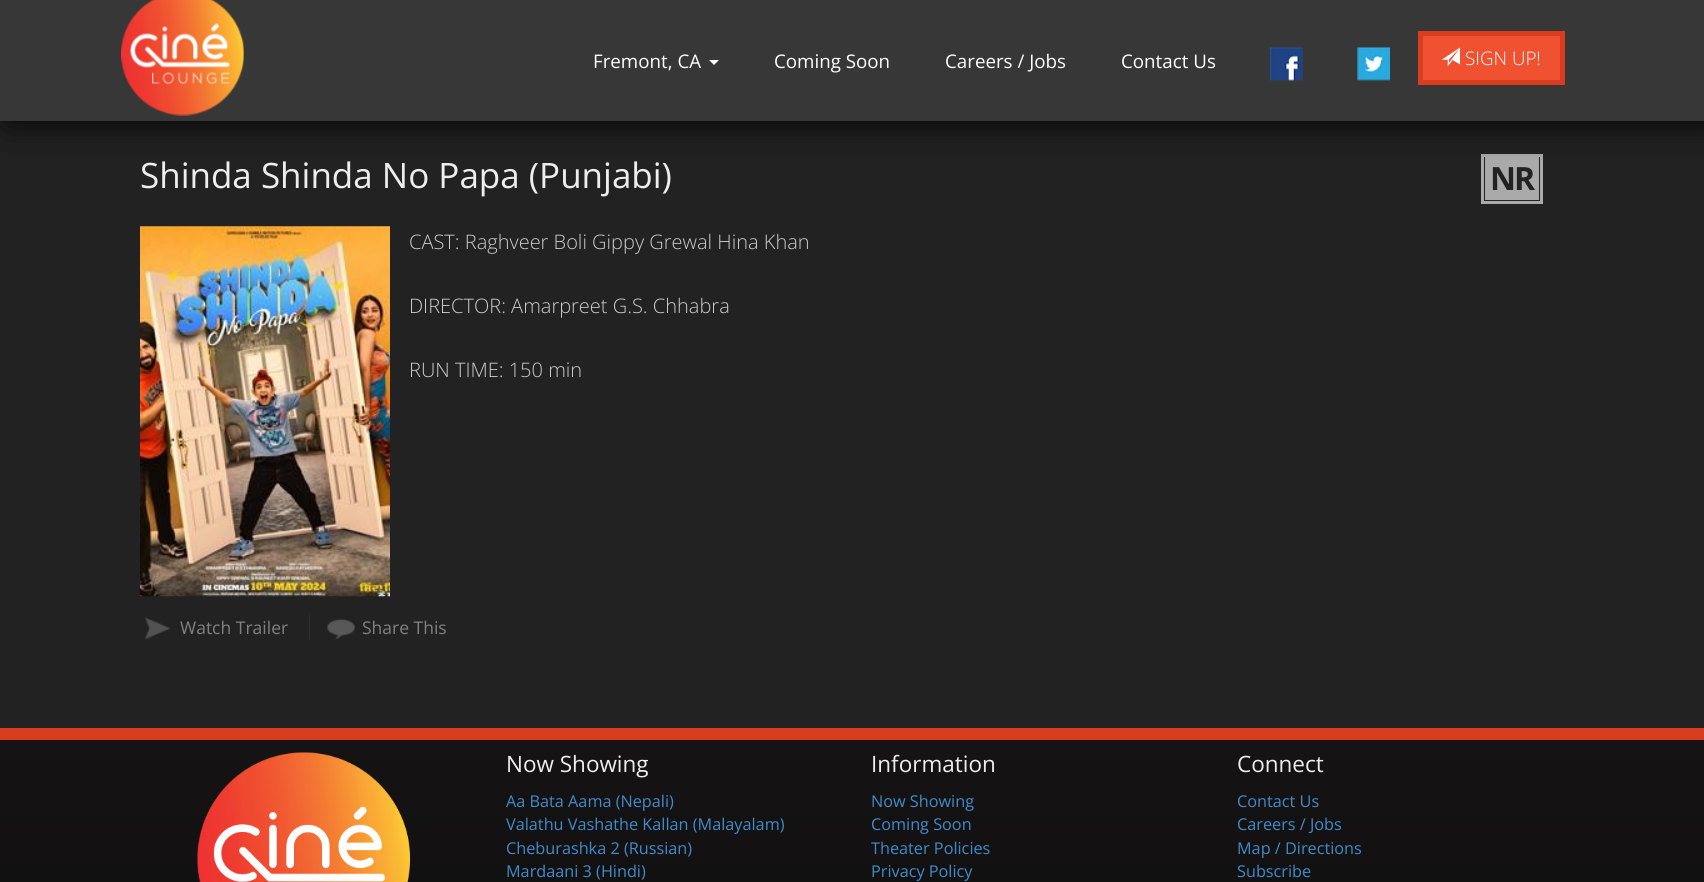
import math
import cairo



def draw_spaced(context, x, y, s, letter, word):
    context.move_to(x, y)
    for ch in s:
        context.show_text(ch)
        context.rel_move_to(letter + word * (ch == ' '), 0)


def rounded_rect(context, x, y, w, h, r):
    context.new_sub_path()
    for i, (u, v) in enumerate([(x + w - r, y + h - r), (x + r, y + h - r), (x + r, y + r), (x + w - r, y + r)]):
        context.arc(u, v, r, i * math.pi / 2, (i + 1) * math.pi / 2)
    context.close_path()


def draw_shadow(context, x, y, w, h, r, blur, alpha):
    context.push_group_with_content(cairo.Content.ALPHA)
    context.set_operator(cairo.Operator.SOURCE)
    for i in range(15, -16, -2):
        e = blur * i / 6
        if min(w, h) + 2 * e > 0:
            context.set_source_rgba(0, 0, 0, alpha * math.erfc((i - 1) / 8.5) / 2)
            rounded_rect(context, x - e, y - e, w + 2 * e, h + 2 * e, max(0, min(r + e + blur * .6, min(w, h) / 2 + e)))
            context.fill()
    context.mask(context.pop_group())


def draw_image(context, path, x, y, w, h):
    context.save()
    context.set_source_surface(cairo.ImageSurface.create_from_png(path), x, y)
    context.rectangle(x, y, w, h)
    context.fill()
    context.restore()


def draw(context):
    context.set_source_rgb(34 / 255, 34 / 255, 34 / 255)
    context.paint()
    context.set_source_rgb(55 / 255, 55 / 255, 55 / 255)
    context.rectangle(0, 0, 1704, 121)
    context.fill()
    context.set_source_rgb(170 / 255, 170 / 255, 170 / 255)
    context.rectangle(1485, 157, 54, 43)
    context.fill()
    context.rectangle(1482.5, 155.5, 59, 47)
    context.set_line_width(3)
    context.stroke()
    context.save()
    context.rectangle(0, 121, 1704, 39)
    context.clip()
    context.set_source_rgb(0, 0, 0)
    draw_shadow(context, 8, 0, 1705, 121, 0, 19, 1)
    context.restore()
    draw_image(context, "images/1.png", 121, 0, 123, 116)
    context.set_source_rgb(1, 1, 1)
    context.new_path()
    context.move_to(709, 60)
    context.line_to(719, 60)
    context.line_to(714, 65)
    context.close_path()
    context.fill()
    draw_image(context, "images/2.png", 1270, 47, 33, 34)
    draw_image(context, "images/3.png", 1357, 47, 33, 34)
    context.set_source_rgb(240 / 255, 81 / 255, 49 / 255)
    context.rectangle(1420.5, 33.5, 142, 49)
    context.fill_preserve()
    context.set_source_rgb(215 / 255, 61 / 255, 30 / 255)
    context.set_line_width(5)
    context.stroke()
    draw_image(context, "images/4.png", 1441, 47, 19, 20)
    draw_image(context, "images/5.png", 140, 226, 250, 371)
    draw_image(context, "images/6.png", 145, 617, 26, 23)
    context.set_source_rgb(48 / 255, 48 / 255, 48 / 255)
    context.rectangle(309, 615, 1, 25)
    context.fill()
    draw_image(context, "images/7.png", 327, 619, 28, 20)
    gradient = cairo.LinearGradient(853, 740, 853, 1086)
    gradient.add_color_stop_rgba(0, 21 / 255, 19 / 255, 19 / 255, 1)
    gradient.add_color_stop_rgba(1, 14 / 255, 13 / 255, 13 / 255, 1)
    context.set_source(gradient)
    context.rectangle(0, 740, 1704, 142)
    context.fill()
    context.set_source_rgb(215 / 255, 61 / 255, 30 / 255)
    context.rectangle(0, 728, 1704, 12)
    context.fill()
    draw_image(context, "images/8.png", 197, 752, 213, 130)
    context.select_font_face("Open Sans")
    context.set_font_size(18.75)
    context.set_source_rgb(1, 1, 1)
    context.move_to(593, 68)
    context.show_text("Fremont, CA")
    context.move_to(774, 68)
    context.show_text("Coming Soon")
    context.move_to(945, 68)
    context.show_text("Careers / Jobs")
    context.move_to(1121, 68)
    context.show_text("Contact Us")
    context.select_font_face("Open Sans Light")
    context.move_to(1465, 65)
    context.show_text("SIGN UP!")
    context.select_font_face("Open Sans")
    context.set_font_size(35)
    context.set_source_rgb(238 / 255, 238 / 255, 238 / 255)
    context.move_to(140, 188)
    context.show_text("Shinda Shinda No Papa (Punjabi)")
    context.select_font_face("Open Sans", cairo.FontSlant.NORMAL, cairo.FontWeight.BOLD)
    context.set_font_size(32)
    context.set_source_rgb(34 / 255, 34 / 255, 34 / 255)
    draw_spaced(context, 1490, 190, "NR", -2, 0)
    context.select_font_face("Open Sans Light")
    context.set_font_size(20)
    context.set_source_rgb(204 / 255, 204 / 255, 204 / 255)
    context.move_to(409, 249)
    context.show_text("CAST: Raghveer Boli Gippy Grewal Hina Khan")
    context.move_to(409, 313)
    context.show_text("DIRECTOR: Amarpreet G.S. Chhabra")
    context.move_to(409, 377)
    context.show_text("RUN TIME: 150 min")
    context.select_font_face("Open Sans")
    context.set_font_size(17.5)
    context.set_source_rgb(129 / 255, 129 / 255, 129 / 255)
    context.move_to(180, 634)
    context.show_text("Watch Trailer")
    context.move_to(362, 634)
    context.show_text("Share This")
    context.set_font_size(22.5)
    context.set_source_rgb(238 / 255, 238 / 255, 238 / 255)
    context.move_to(506, 772)
    context.show_text("Now Showing")
    context.set_font_size(16.25)
    context.set_source_rgb(66 / 255, 139 / 255, 202 / 255)
    context.move_to(506, 807)
    context.show_text("Aa Bata Aama (Nepali)")
    context.move_to(506, 830)
    context.show_text("Valathu Vashathe Kallan (Malayalam)")
    context.move_to(506, 854)
    context.show_text("Cheburashka 2 (Russian)")
    context.move_to(506, 877)
    context.show_text("Mardaani 3 (Hindi)")
    context.set_font_size(22.5)
    context.set_source_rgb(238 / 255, 238 / 255, 238 / 255)
    context.move_to(871, 772)
    context.show_text("Information")
    context.set_font_size(16.25)
    context.set_source_rgb(66 / 255, 139 / 255, 202 / 255)
    context.move_to(871, 807)
    context.show_text("Now Showing")
    context.move_to(871, 830)
    context.show_text("Coming Soon")
    context.move_to(871, 854)
    context.show_text("Theater Policies")
    context.move_to(871, 877)
    context.show_text("Privacy Policy")
    context.set_font_size(22.5)
    context.set_source_rgb(238 / 255, 238 / 255, 238 / 255)
    context.move_to(1237, 772)
    context.show_text("Connect")
    context.set_font_size(16.25)
    context.set_source_rgb(66 / 255, 139 / 255, 202 / 255)
    context.move_to(1237, 807)
    context.show_text("Contact Us")
    context.move_to(1237, 830)
    context.show_text("Careers / Jobs")
    context.move_to(1237, 854)
    context.show_text("Map / Directions")
    context.move_to(1237, 877)
    context.show_text("Subscribe")


surface = cairo.ImageSurface(cairo.Format.RGB24, 1704, 882)
context = cairo.Context(surface)
options = cairo.FontOptions()
options.set_hint_metrics(cairo.HintMetrics.OFF)
options.set_hint_style(cairo.HintStyle.NONE)
context.set_font_options(options)
context.set_miter_limit(4)
draw(context)
surface.write_to_png("out.png")
